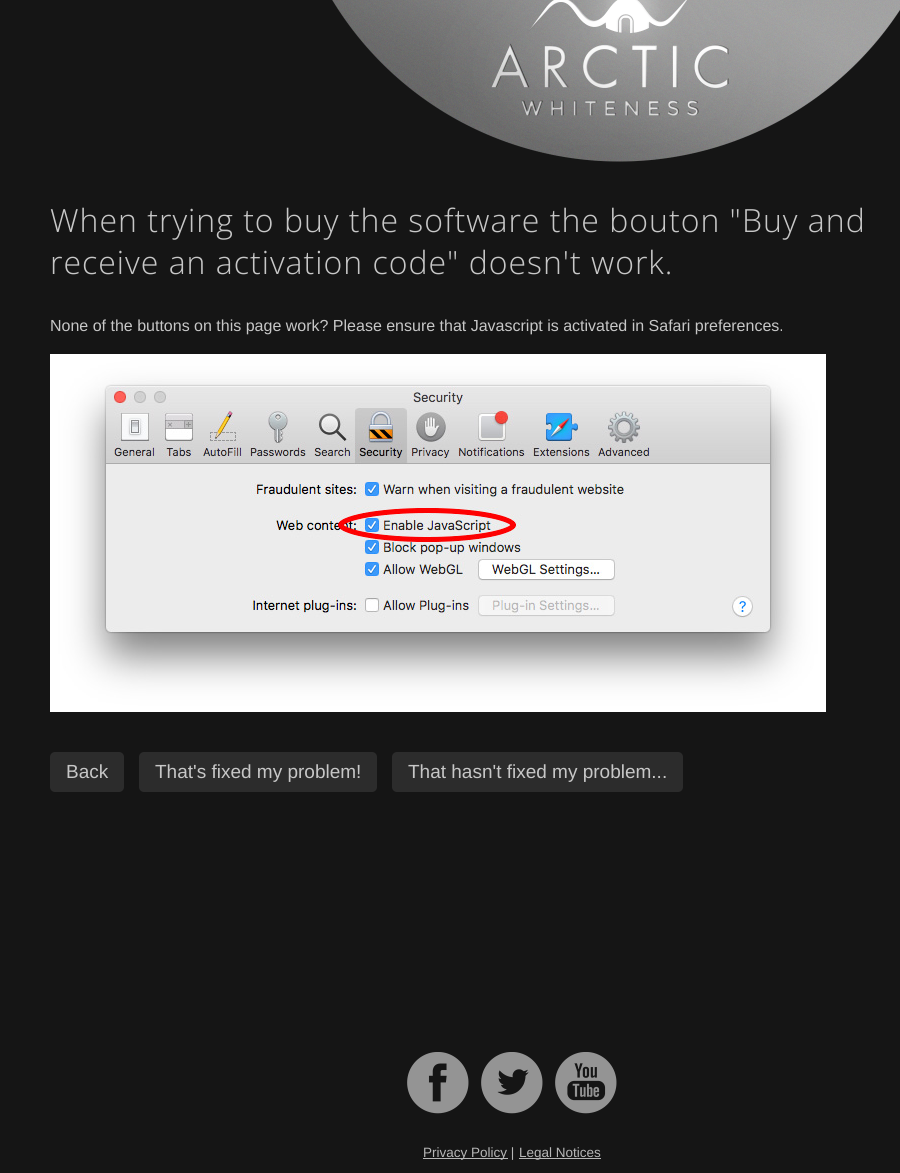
import math
import cairo



def draw_spaced(context, x, y, s, letter, word):
    context.move_to(x, y)
    for ch in s:
        context.show_text(ch)
        context.rel_move_to(letter + word * (ch == ' '), 0)


def rounded_rect(context, x, y, w, h, r):
    context.new_sub_path()
    for i, (u, v) in enumerate([(x + w - r, y + h - r), (x + r, y + h - r), (x + r, y + r), (x + w - r, y + r)]):
        context.arc(u, v, r, i * math.pi / 2, (i + 1) * math.pi / 2)
    context.close_path()


def draw_image(context, path, x, y, w, h):
    context.save()
    context.set_source_surface(cairo.ImageSurface.create_from_png(path), x, y)
    context.rectangle(x, y, w, h)
    context.fill()
    context.restore()


def draw(context):
    context.set_source_rgb(21 / 255, 21 / 255, 21 / 255)
    context.paint()
    draw_image(context, "images/1.png", 332, 0, 568, 162)
    draw_image(context, "images/2.png", 50, 354, 776, 358)
    context.set_source_rgb(44 / 255, 44 / 255, 44 / 255)
    rounded_rect(context, 50, 752, 74, 40, 5)
    context.fill()
    rounded_rect(context, 139, 752, 238, 40, 5)
    context.fill()
    rounded_rect(context, 392, 752, 291, 40, 5)
    context.fill()
    draw_image(context, "images/3.png", 407, 1052, 62, 62)
    draw_image(context, "images/4.png", 481, 1052, 62, 62)
    draw_image(context, "images/5.png", 555, 1052, 62, 62)
    context.set_source_rgb(183 / 255, 183 / 255, 183 / 255)
    context.rectangle(423, 1158, 85, 1)
    context.fill()
    context.rectangle(519, 1158, 82, 1)
    context.fill()
    context.select_font_face("Open Sans Light")
    context.set_font_size(32)
    context.set_source_rgb(199 / 255, 199 / 255, 199 / 255)
    draw_spaced(context, 50, 232, "When trying to buy the software the bouton \"Buy and", 1, 0)
    draw_spaced(context, 50, 274, "receive an activation code\" doesn't work.", 1, 0)
    context.select_font_face("Liberation Sans")
    context.set_font_size(16)
    context.move_to(50, 331)
    context.show_text("None of the buttons on this page work? Please ensure that Javascript is activated in Safari preferences.")
    context.set_font_size(19)
    context.move_to(66, 778)
    context.show_text("Back")
    context.move_to(155, 778)
    context.show_text("That's fixed my problem!")
    context.move_to(408, 778)
    context.show_text("That hasn't fixed my problem...")
    context.set_font_size(13.5)
    context.set_source_rgb(183 / 255, 183 / 255, 183 / 255)
    context.move_to(423, 1157)
    context.show_text("Privacy Policy |")
    context.move_to(519, 1157)
    context.show_text("Legal Notices")


surface = cairo.ImageSurface(cairo.Format.RGB24, 900, 1173)
context = cairo.Context(surface)
options = cairo.FontOptions()
options.set_hint_metrics(cairo.HintMetrics.OFF)
options.set_hint_style(cairo.HintStyle.NONE)
context.set_font_options(options)
context.set_miter_limit(4)
draw(context)
surface.write_to_png("out.png")
